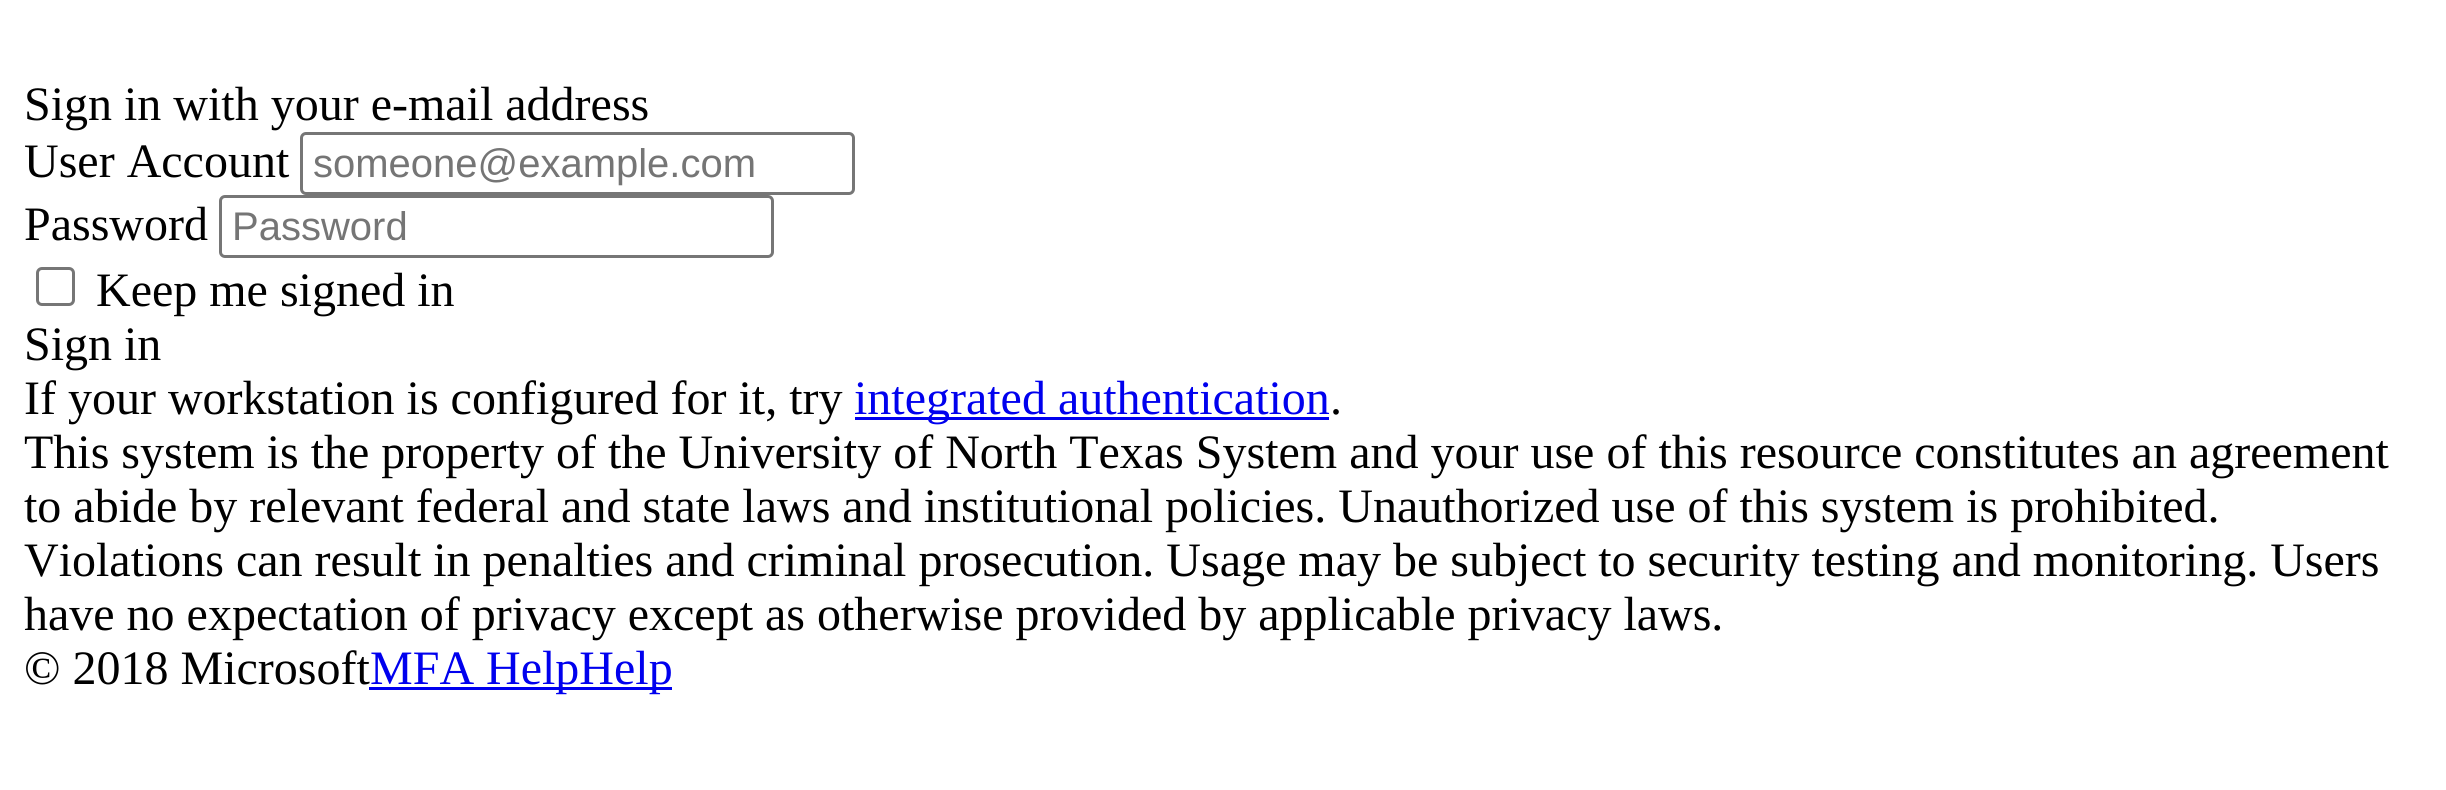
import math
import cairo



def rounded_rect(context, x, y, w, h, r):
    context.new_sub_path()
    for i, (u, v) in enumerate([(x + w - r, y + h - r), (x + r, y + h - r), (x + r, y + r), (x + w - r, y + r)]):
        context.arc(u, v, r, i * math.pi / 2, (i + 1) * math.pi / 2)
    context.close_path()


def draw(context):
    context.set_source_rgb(1, 1, 1)
    context.paint()
    rounded_rect(context, 301.5, 133.5, 552, 60, 4.5)
    context.set_source_rgb(118 / 255, 118 / 255, 118 / 255)
    context.set_line_width(3)
    context.stroke()
    rounded_rect(context, 220.5, 196.5, 552, 60, 4.5)
    context.stroke()
    rounded_rect(context, 37.5, 268.5, 36, 36, 4.5)
    context.stroke()
    context.set_source_rgb(0, 0, 238 / 255)
    context.rectangle(855, 417, 474, 3)
    context.fill()
    context.rectangle(369, 687, 303, 3)
    context.fill()
    context.select_font_face("Liberation Serif")
    context.set_font_size(48)
    context.set_source_rgb(0, 0, 0)
    context.move_to(24, 120)
    context.show_text("Sign in with your e-mail address")
    context.move_to(24, 177)
    context.show_text("User Account")
    context.select_font_face("Liberation Sans")
    context.set_font_size(40)
    context.set_source_rgb(117 / 255, 117 / 255, 117 / 255)
    context.move_to(313, 177)
    context.show_text("someone@example.com")
    context.select_font_face("Liberation Serif")
    context.set_font_size(48)
    context.set_source_rgb(0, 0, 0)
    context.move_to(24, 240)
    context.show_text("Password")
    context.select_font_face("Liberation Sans")
    context.set_font_size(40)
    context.set_source_rgb(117 / 255, 117 / 255, 117 / 255)
    context.move_to(232, 240)
    context.show_text("Password")
    context.select_font_face("Liberation Serif")
    context.set_font_size(48)
    context.set_source_rgb(0, 0, 0)
    context.move_to(96, 306)
    context.show_text("Keep me signed in")
    context.move_to(24, 360)
    context.show_text("Sign in")
    context.move_to(24, 414)
    context.show_text("If your workstation is configured for it, try")
    context.set_source_rgb(0, 0, 238 / 255)
    context.move_to(854, 414)
    context.show_text("integrated authentication")
    context.set_source_rgb(0, 0, 0)
    context.move_to(1330, 414)
    context.show_text(".")
    context.move_to(24, 468)
    context.show_text("This system is the property of the University of North Texas System and your use of this resource constitutes an agreement")
    context.move_to(24, 522)
    context.show_text("to abide by relevant federal and state laws and institutional policies. Unauthorized use of this system is prohibited.")
    context.move_to(24, 576)
    context.show_text("Violations can result in penalties and criminal prosecution. Usage may be subject to security testing and monitoring. Users")
    context.move_to(24, 630)
    context.show_text("have no expectation of privacy except as otherwise provided by applicable privacy laws.")
    context.move_to(24, 684)
    context.show_text("© 2018 Microsoft")
    context.set_source_rgb(0, 0, 238 / 255)
    context.move_to(370, 684)
    context.show_text("MFA HelpHelp")


surface = cairo.ImageSurface(cairo.Format.RGB24, 2446, 790)
context = cairo.Context(surface)
options = cairo.FontOptions()
options.set_hint_metrics(cairo.HintMetrics.OFF)
options.set_hint_style(cairo.HintStyle.NONE)
context.set_font_options(options)
context.set_miter_limit(4)
draw(context)
surface.write_to_png("out.png")
